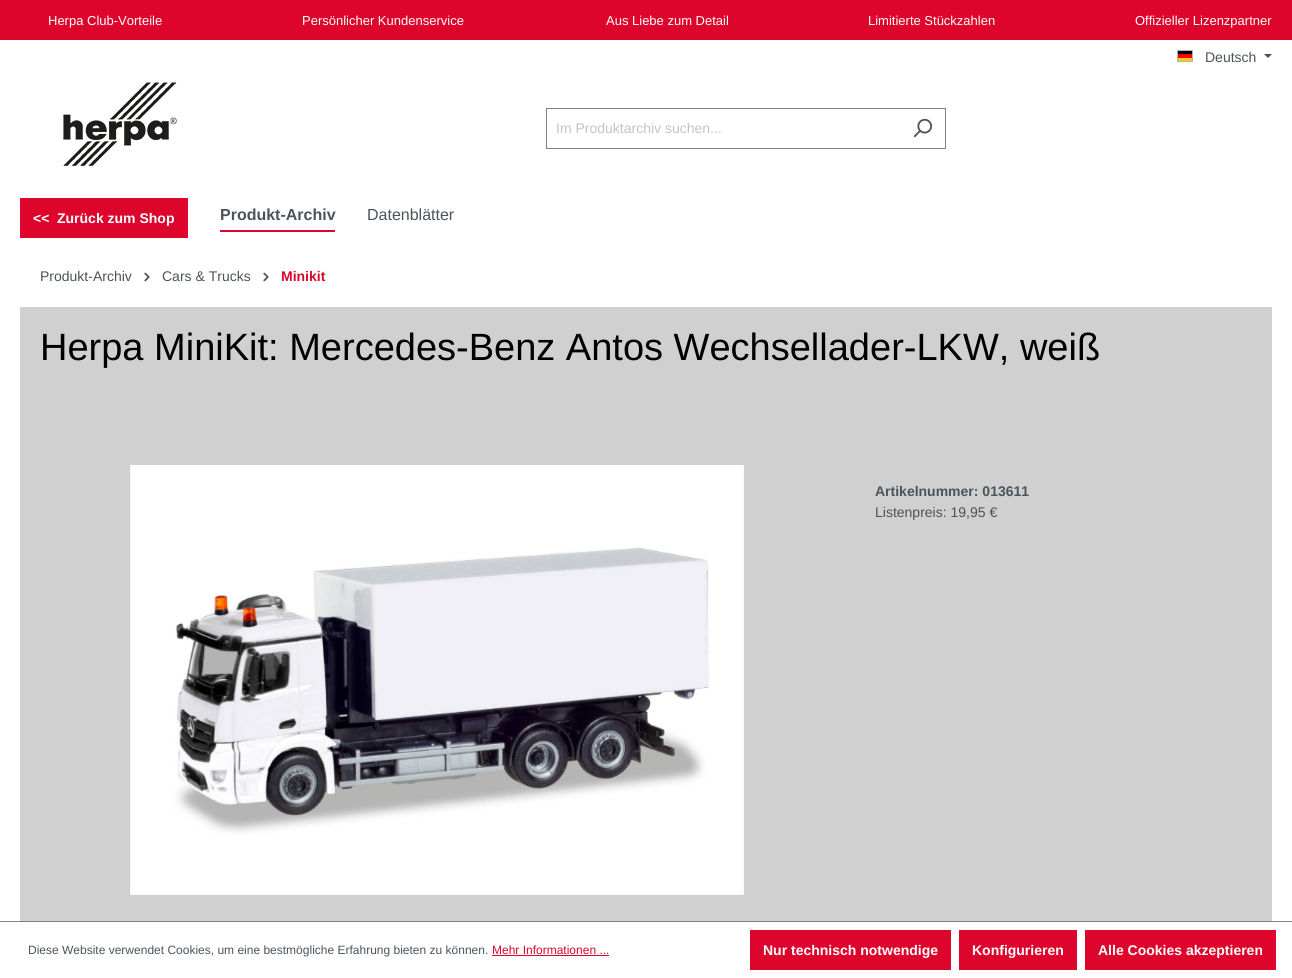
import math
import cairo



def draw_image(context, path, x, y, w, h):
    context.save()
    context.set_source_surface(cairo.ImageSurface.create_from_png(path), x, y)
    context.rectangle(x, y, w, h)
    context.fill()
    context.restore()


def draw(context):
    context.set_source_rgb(1, 1, 1)
    context.paint()
    context.set_source_rgb(221 / 255, 5 / 255, 43 / 255)
    context.rectangle(0, 0, 1292, 40)
    context.fill()
    context.set_source_rgb(0, 0, 0)
    context.rectangle(1178, 51, 14, 3)
    context.fill()
    context.set_source_rgb(1, 0, 0)
    context.rectangle(1178, 54, 14, 4)
    context.fill()
    context.set_source_rgb(1, 204 / 255, 0)
    context.rectangle(1178, 58, 14, 3)
    context.fill()
    context.rectangle(1177.5, 50.5, 15, 11)
    context.set_source_rgb(173 / 255, 181 / 255, 189 / 255)
    context.set_line_width(1)
    context.stroke()
    context.set_source_rgb(74 / 255, 84 / 255, 91 / 255)
    context.new_path()
    context.move_to(1264, 54)
    context.line_to(1272, 54)
    context.line_to(1268, 58)
    context.close_path()
    context.fill()
    draw_image(context, "images/1.png", 63, 82, 114, 84)
    context.set_source_rgb(121 / 255, 132 / 255, 144 / 255)
    context.rectangle(546, 108, 400, 1)
    context.fill()
    context.rectangle(546, 148, 354, 1)
    context.fill()
    context.rectangle(546, 108, 1, 41)
    context.fill()
    context.rectangle(945, 108, 1, 41)
    context.fill()
    context.rectangle(899, 148, 47, 1)
    context.fill()
    draw_image(context, "images/2.png", 913, 118, 20, 20)
    context.set_source_rgb(221 / 255, 5 / 255, 43 / 255)
    context.rectangle(20, 198, 168, 40)
    context.fill()
    context.rectangle(220, 230, 115, 2)
    context.fill()
    draw_image(context, "images/3.png", 144, 272, 6, 10)
    draw_image(context, "images/3.png", 263, 272, 6, 10)
    context.set_source_rgb(208 / 255, 208 / 255, 208 / 255)
    context.rectangle(20, 307, 1252, 614)
    context.fill()
    draw_image(context, "images/4.png", 130, 465, 614, 430)
    context.set_source_rgb(121 / 255, 132 / 255, 144 / 255)
    context.rectangle(0, 921, 1292, 1)
    context.fill()
    context.set_source_rgb(221 / 255, 5 / 255, 43 / 255)
    context.rectangle(492, 955, 117, 1)
    context.fill()
    context.rectangle(750, 930, 201, 40)
    context.fill()
    context.rectangle(959, 930, 118, 40)
    context.fill()
    context.rectangle(1085, 930, 191, 40)
    context.fill()
    context.select_font_face("Liberation Sans")
    context.set_font_size(13)
    context.set_source_rgb(1, 1, 1)
    context.move_to(48, 25)
    context.show_text("Herpa Club-Vorteile")
    context.move_to(302, 25)
    context.show_text("Persönlicher Kundenservice")
    context.move_to(606, 25)
    context.show_text("Aus Liebe zum Detail")
    context.move_to(868, 25)
    context.show_text("Limitierte Stückzahlen")
    context.move_to(1135, 25)
    context.show_text("Offizieller Lizenzpartner")
    context.set_font_size(14)
    context.set_source_rgb(74 / 255, 84 / 255, 91 / 255)
    context.move_to(1205, 62)
    context.show_text("Deutsch")
    context.set_source_rgb(195 / 255, 195 / 255, 195 / 255)
    context.move_to(556, 133)
    context.show_text("Im Produktarchiv suchen...")
    context.select_font_face("Liberation Sans", cairo.FontSlant.NORMAL, cairo.FontWeight.BOLD)
    context.set_source_rgb(1, 1, 1)
    context.move_to(33, 223)
    context.show_text("<<")
    context.move_to(57, 223)
    context.show_text("Zurück zum Shop")
    context.set_font_size(16)
    context.set_source_rgb(74 / 255, 84 / 255, 91 / 255)
    context.move_to(220, 220)
    context.show_text("Produkt-Archiv")
    context.select_font_face("Liberation Sans")
    context.move_to(367, 220)
    context.show_text("Datenblätter")
    context.set_font_size(14)
    context.move_to(40, 281)
    context.show_text("Produkt-Archiv")
    context.move_to(162, 281)
    context.show_text("Cars & Trucks")
    context.select_font_face("Liberation Sans", cairo.FontSlant.NORMAL, cairo.FontWeight.BOLD)
    context.set_source_rgb(221 / 255, 5 / 255, 43 / 255)
    context.move_to(281, 281)
    context.show_text("Minikit")
    context.select_font_face("Liberation Sans")
    context.set_font_size(38)
    context.set_source_rgb(0, 0, 0)
    context.move_to(40, 360)
    context.show_text("Herpa MiniKit: Mercedes-Benz Antos Wechsellader-LKW, weiß")
    context.select_font_face("Liberation Sans", cairo.FontSlant.NORMAL, cairo.FontWeight.BOLD)
    context.set_font_size(14)
    context.set_source_rgb(74 / 255, 84 / 255, 91 / 255)
    context.move_to(875, 496)
    context.show_text("Artikelnummer: 013611")
    context.select_font_face("Liberation Sans")
    context.move_to(875, 517)
    context.show_text("Listenpreis: 19,95 €")
    context.set_font_size(12)
    context.move_to(28, 954)
    context.show_text("Diese Website verwendet Cookies, um eine bestmögliche Erfahrung bieten zu können.")
    context.set_source_rgb(221 / 255, 5 / 255, 43 / 255)
    context.move_to(492, 954)
    context.show_text("Mehr Informationen ...")
    context.select_font_face("Liberation Sans", cairo.FontSlant.NORMAL, cairo.FontWeight.BOLD)
    context.set_font_size(14)
    context.set_source_rgb(1, 1, 1)
    context.move_to(763, 955)
    context.show_text("Nur technisch notwendige")
    context.move_to(972, 955)
    context.show_text("Konfigurieren")
    context.move_to(1098, 955)
    context.show_text("Alle Cookies akzeptieren")


surface = cairo.ImageSurface(cairo.Format.RGB24, 1292, 978)
context = cairo.Context(surface)
options = cairo.FontOptions()
options.set_hint_metrics(cairo.HintMetrics.OFF)
options.set_hint_style(cairo.HintStyle.NONE)
context.set_font_options(options)
context.set_miter_limit(4)
draw(context)
surface.write_to_png("out.png")
